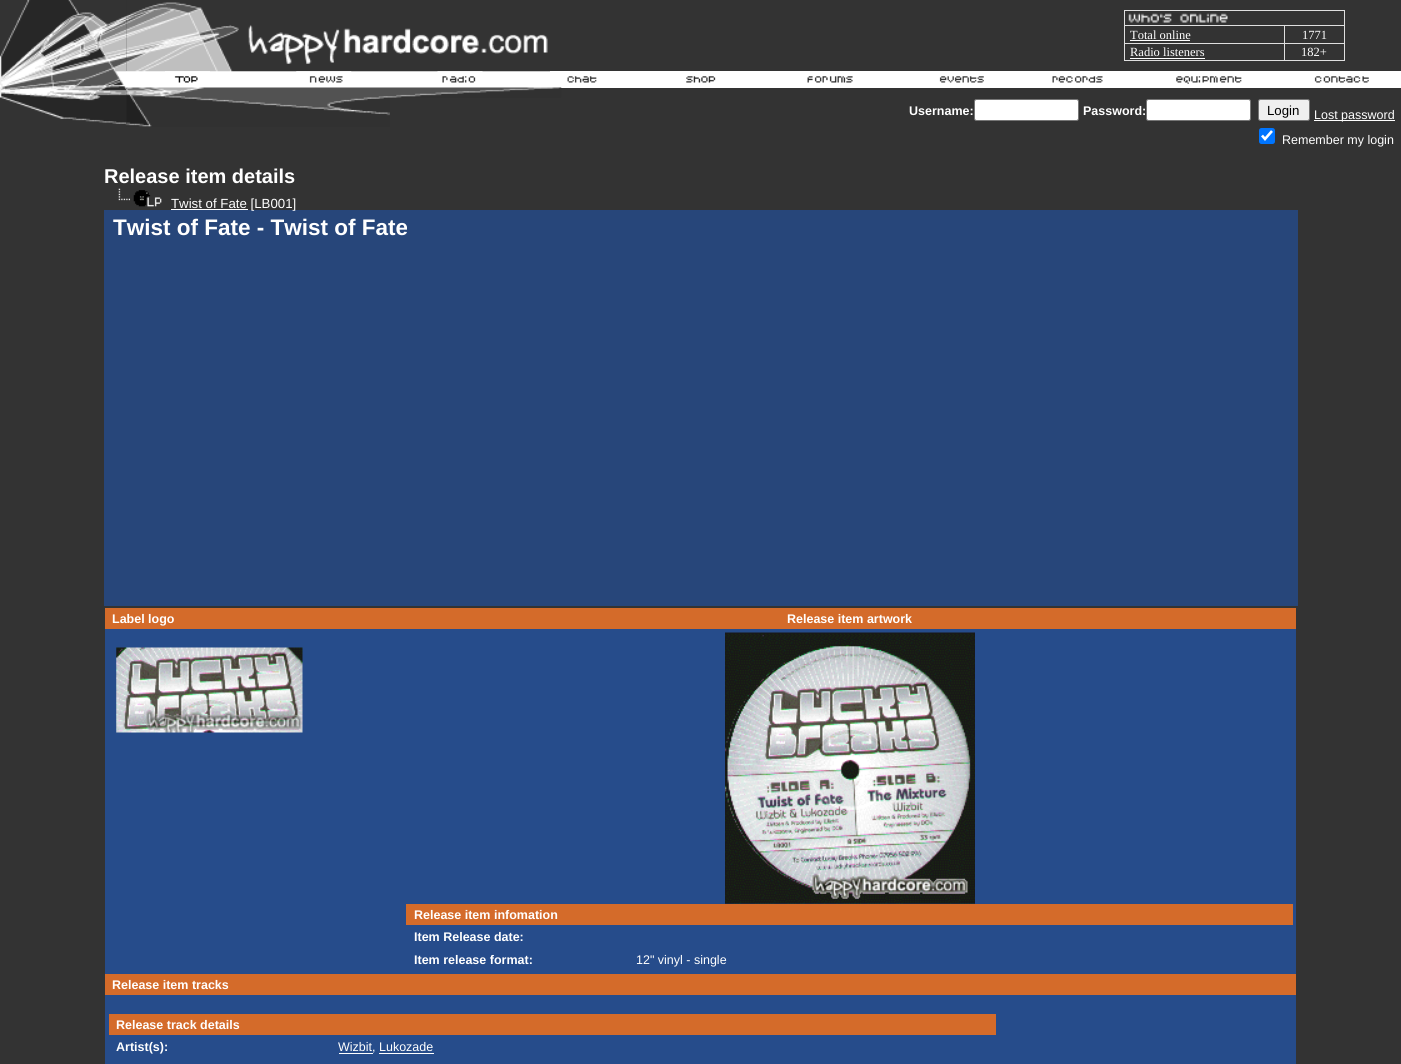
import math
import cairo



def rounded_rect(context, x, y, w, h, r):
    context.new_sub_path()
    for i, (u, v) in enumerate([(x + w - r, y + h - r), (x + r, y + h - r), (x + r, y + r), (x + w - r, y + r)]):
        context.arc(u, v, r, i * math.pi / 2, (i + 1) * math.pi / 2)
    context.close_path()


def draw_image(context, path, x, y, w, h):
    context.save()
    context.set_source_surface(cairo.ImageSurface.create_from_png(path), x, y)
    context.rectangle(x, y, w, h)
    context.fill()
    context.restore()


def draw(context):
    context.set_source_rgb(51 / 255, 51 / 255, 51 / 255)
    context.paint()
    context.set_source_rgb(1, 1, 1)
    context.rectangle(126, 71, 1275, 17)
    context.fill()
    draw_image(context, "images/1.png", 0, 0, 127, 125)
    draw_image(context, "images/2.png", 126, 2, 424, 70)
    context.set_source_rgb(223 / 255, 223 / 255, 223 / 255)
    context.rectangle(1124, 10, 221, 51)
    context.fill()
    context.set_source_rgb(51 / 255, 51 / 255, 51 / 255)
    context.rectangle(1125, 11, 219, 14)
    context.fill()
    draw_image(context, "images/3.png", 1128, 13, 100, 10)
    context.rectangle(1125, 26, 159, 17)
    context.fill()
    context.set_source_rgb(1, 1, 1)
    context.rectangle(1130, 40, 60, 1)
    context.fill()
    context.set_source_rgb(51 / 255, 51 / 255, 51 / 255)
    context.rectangle(1285, 26, 59, 17)
    context.fill()
    context.rectangle(1125, 44, 159, 16)
    context.fill()
    context.set_source_rgb(1, 1, 1)
    context.rectangle(1130, 58, 75, 1)
    context.fill()
    context.set_source_rgb(51 / 255, 51 / 255, 51 / 255)
    context.rectangle(1285, 44, 59, 16)
    context.fill()
    draw_image(context, "images/4.png", 165, 71, 45, 12)
    draw_image(context, "images/5.png", 296, 71, 56, 12)
    draw_image(context, "images/6.png", 437, 71, 46, 12)
    draw_image(context, "images/7.png", 567, 76, 30, 7)
    draw_image(context, "images/8.png", 686, 76, 30, 7)
    draw_image(context, "images/9.png", 807, 76, 46, 7)
    draw_image(context, "images/10.png", 939, 76, 45, 7)
    draw_image(context, "images/11.png", 1052, 76, 51, 7)
    draw_image(context, "images/12.png", 1176, 76, 66, 8)
    draw_image(context, "images/13.png", 1314, 76, 55, 7)
    draw_image(context, "images/14.png", 126, 87, 264, 40)
    draw_image(context, "images/15.png", 390, 87, 172, 11)
    context.set_source_rgb(1, 1, 1)
    rounded_rect(context, 974.5, 99.5, 104, 21, 2)
    context.fill_preserve()
    context.set_source_rgb(118 / 255, 118 / 255, 118 / 255)
    context.set_line_width(1)
    context.stroke()
    context.set_source_rgb(1, 1, 1)
    rounded_rect(context, 1146.5, 99.5, 104, 21, 2)
    context.fill_preserve()
    context.set_source_rgb(118 / 255, 118 / 255, 118 / 255)
    context.stroke()
    context.set_source_rgb(239 / 255, 239 / 255, 239 / 255)
    rounded_rect(context, 1258.5, 99.5, 51, 21, 2)
    context.fill_preserve()
    context.set_source_rgb(118 / 255, 118 / 255, 118 / 255)
    context.stroke()
    context.set_source_rgb(1, 1, 1)
    context.rectangle(1314, 120, 81, 1)
    context.fill()
    context.set_source_rgb(0, 117 / 255, 1)
    rounded_rect(context, 1259, 128, 16, 16, 2.5)
    context.fill()
    context.new_path()
    context.move_to(1262, 135.5)
    context.line_to(1265, 139)
    context.line_to(1272, 131)
    context.set_source_rgb(1, 1, 1)
    context.set_line_width(2.6)
    context.stroke()
    draw_image(context, "images/16.png", 118, 188, 12, 13)
    draw_image(context, "images/17.png", 133, 190, 29, 17)
    context.rectangle(171, 209, 77, 1)
    context.fill()
    context.set_source_rgb(39 / 255, 70 / 255, 122 / 255)
    context.rectangle(104, 210, 1194, 396)
    context.fill()
    context.set_source_rgb(212 / 255, 107 / 255, 42 / 255)
    context.rectangle(105, 608, 1191, 21)
    context.fill()
    context.set_source_rgb(38 / 255, 76 / 255, 139 / 255)
    context.rectangle(105, 629, 1191, 345)
    context.fill()
    draw_image(context, "images/18.png", 116, 647, 187, 86)
    draw_image(context, "images/19.png", 725, 632, 250, 272)
    context.set_source_rgb(212 / 255, 107 / 255, 42 / 255)
    context.rectangle(406, 904, 887, 21)
    context.fill()
    context.rectangle(105, 974, 1191, 21)
    context.fill()
    context.set_source_rgb(38 / 255, 76 / 255, 139 / 255)
    context.rectangle(105, 995, 1191, 69)
    context.fill()
    context.set_source_rgb(212 / 255, 107 / 255, 42 / 255)
    context.rectangle(109, 1014, 887, 21)
    context.fill()
    context.set_source_rgb(1, 1, 1)
    context.rectangle(339, 1053, 34, 1)
    context.fill()
    context.rectangle(379, 1053, 55, 1)
    context.fill()
    context.select_font_face("Liberation Serif")
    context.set_font_size(12.5)
    context.move_to(1130, 39)
    context.show_text("Total online")
    context.move_to(1302, 39)
    context.show_text("1771")
    context.move_to(1130, 56)
    context.show_text("Radio listeners")
    context.move_to(1301, 56)
    context.show_text("182+")
    context.select_font_face("Liberation Sans", cairo.FontSlant.NORMAL, cairo.FontWeight.BOLD)
    context.move_to(909, 115)
    context.show_text("Username:")
    context.move_to(1083, 115)
    context.show_text("Password:")
    context.select_font_face("Liberation Sans")
    context.set_font_size(13.25)
    context.set_source_rgb(0, 0, 0)
    context.move_to(1267, 115)
    context.show_text("Login")
    context.set_font_size(12.5)
    context.set_source_rgb(1, 1, 1)
    context.move_to(1314, 119)
    context.show_text("Lost password")
    context.move_to(1282, 144)
    context.show_text("Remember my login")
    context.select_font_face("Liberation Sans", cairo.FontSlant.NORMAL, cairo.FontWeight.BOLD)
    context.set_font_size(20)
    context.move_to(104, 183)
    context.show_text("Release item details")
    context.select_font_face("Liberation Sans")
    context.set_font_size(13.25)
    context.move_to(171, 208)
    context.show_text("Twist of Fate [LB001]")
    context.select_font_face("Liberation Sans", cairo.FontSlant.NORMAL, cairo.FontWeight.BOLD)
    context.set_font_size(22.5)
    context.move_to(113, 235)
    context.show_text("Twist of Fate - Twist of Fate")
    context.set_font_size(12.5)
    context.move_to(112, 623)
    context.show_text("Label logo")
    context.move_to(787, 623)
    context.show_text("Release item artwork")
    context.move_to(414, 919)
    context.show_text("Release item infomation")
    context.move_to(414, 941)
    context.show_text("Item Release date:")
    context.move_to(414, 964)
    context.show_text("Item release format:")
    context.select_font_face("Liberation Sans")
    context.move_to(636, 964)
    context.show_text("12\" vinyl - single")
    context.select_font_face("Liberation Sans", cairo.FontSlant.NORMAL, cairo.FontWeight.BOLD)
    context.move_to(112, 989)
    context.show_text("Release item tracks")
    context.move_to(116, 1029)
    context.show_text("Release track details")
    context.move_to(116, 1051)
    context.show_text("Artist(s):")
    context.select_font_face("Liberation Sans")
    context.move_to(338, 1051)
    context.show_text("Wizbit, Lukozade")


surface = cairo.ImageSurface(cairo.Format.RGB24, 1401, 1064)
context = cairo.Context(surface)
options = cairo.FontOptions()
options.set_hint_metrics(cairo.HintMetrics.OFF)
options.set_hint_style(cairo.HintStyle.NONE)
context.set_font_options(options)
context.set_miter_limit(4)
draw(context)
surface.write_to_png("out.png")
